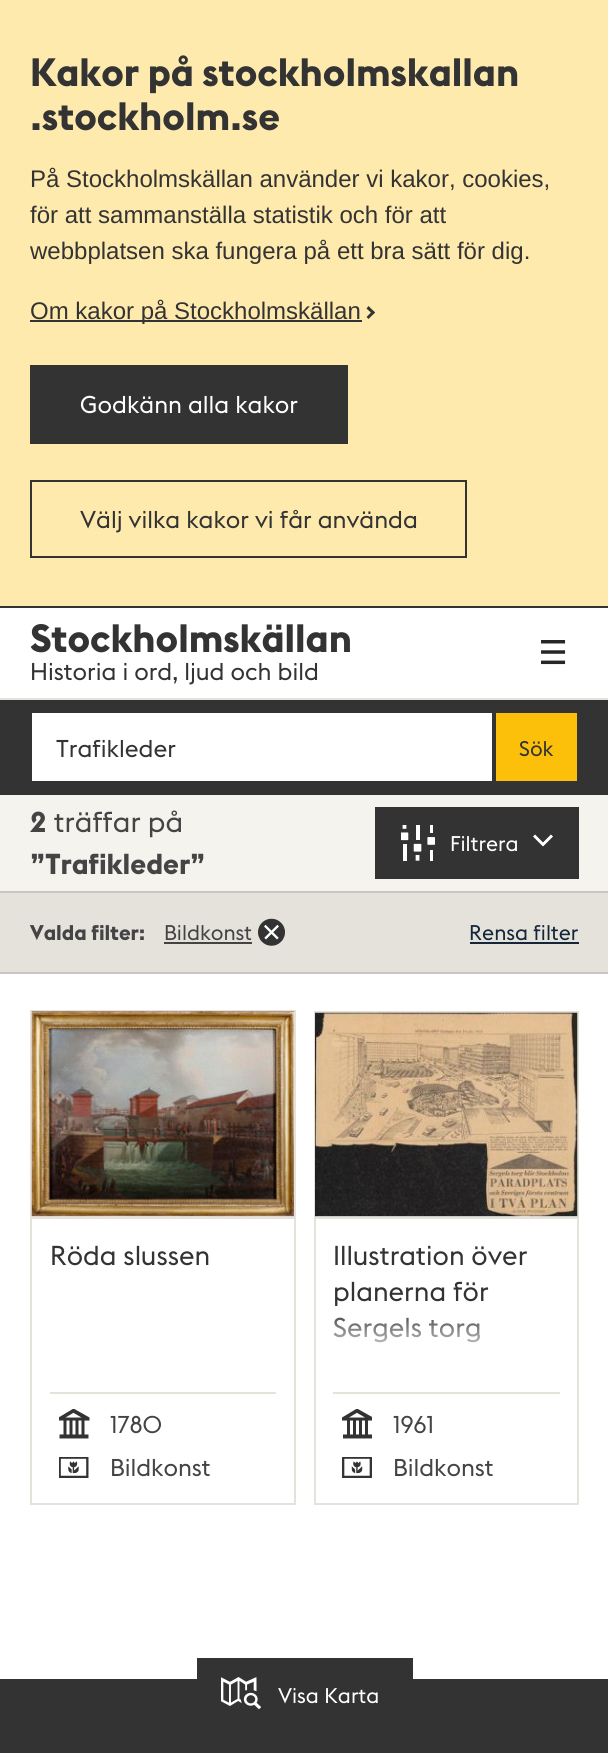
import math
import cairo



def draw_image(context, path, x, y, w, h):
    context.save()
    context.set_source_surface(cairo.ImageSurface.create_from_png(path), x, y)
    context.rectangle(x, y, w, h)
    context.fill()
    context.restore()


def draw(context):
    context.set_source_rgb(1, 1, 1)
    context.paint()
    context.set_source_rgb(254 / 255, 234 / 255, 173 / 255)
    context.rectangle(0, 0, 608, 606)
    context.fill()
    context.set_source_rgb(51 / 255, 51 / 255, 51 / 255)
    context.rectangle(0, 606, 608, 2)
    context.fill()
    context.rectangle(30, 320, 332, 2)
    context.fill()
    context.new_path()
    context.move_to(366.5, 308.5)
    context.line_to(368.5, 306)
    context.line_to(375, 312.5)
    context.line_to(373, 314.5)
    context.close_path()
    context.fill()
    context.new_path()
    context.move_to(366.5, 317)
    context.line_to(373, 310.5)
    context.line_to(375, 312.5)
    context.line_to(368.5, 319)
    context.close_path()
    context.fill()
    context.rectangle(30, 365, 318, 79)
    context.fill()
    context.rectangle(31, 481, 435, 76)
    context.stroke()
    context.set_source_rgb(229 / 255, 226 / 255, 219 / 255)
    context.rectangle(0, 698, 608, 2)
    context.fill()
    draw_image(context, "images/1.png", 541, 640, 25, 25)
    context.set_source_rgb(51 / 255, 51 / 255, 51 / 255)
    context.rectangle(0, 700, 608, 95)
    context.fill()
    context.set_source_rgb(1, 1, 1)
    context.rectangle(32, 713, 460, 68)
    context.fill()
    context.set_source_rgb(252 / 255, 191 / 255, 10 / 255)
    context.rectangle(496, 713, 81, 68)
    context.fill()
    context.set_source_rgb(245 / 255, 243 / 255, 238 / 255)
    context.rectangle(0, 795, 608, 96)
    context.fill()
    context.set_source_rgb(51 / 255, 51 / 255, 51 / 255)
    context.rectangle(375, 807, 204, 72)
    context.fill()
    draw_image(context, "images/2.png", 401, 825, 34, 36)
    draw_image(context, "images/3.png", 533, 834, 20, 13)
    context.set_source_rgb(229 / 255, 226 / 255, 219 / 255)
    context.rectangle(0, 893, 608, 79)
    context.fill()
    context.set_source_rgb(201 / 255, 198 / 255, 192 / 255)
    context.rectangle(0, 891, 608, 2)
    context.fill()
    context.rectangle(0, 972, 608, 2)
    context.fill()
    context.set_source_rgb(68 / 255, 68 / 255, 68 / 255)
    context.rectangle(164, 942, 88, 2)
    context.fill()
    draw_image(context, "images/4.png", 258, 918, 27, 28)
    context.set_source_rgb(20 / 255, 38 / 255, 56 / 255)
    context.rectangle(470, 942, 109, 2)
    context.fill()
    context.rectangle(31, 1011, 264, 493)
    context.set_source_rgb(229 / 255, 226 / 255, 219 / 255)
    context.stroke()
    draw_image(context, "images/5.png", 31, 1011, 263, 206)
    context.rectangle(32, 1217, 262, 2)
    context.fill()
    context.rectangle(50, 1392, 226, 2)
    context.fill()
    draw_image(context, "images/6.png", 59, 1409, 31, 30)
    draw_image(context, "images/7.png", 59, 1457, 30, 21)
    context.rectangle(315, 1012, 263, 492)
    context.stroke()
    draw_image(context, "images/8.png", 315, 1012, 263, 205)
    context.rectangle(315, 1217, 263, 2)
    context.fill()
    context.rectangle(333, 1392, 227, 2)
    context.fill()
    draw_image(context, "images/9.png", 342, 1409, 30, 30)
    draw_image(context, "images/10.png", 342, 1457, 30, 21)
    context.set_source_rgb(51 / 255, 51 / 255, 51 / 255)
    context.rectangle(197, 1658, 216, 21)
    context.fill()
    context.rectangle(0, 1679, 608, 74)
    context.fill()
    draw_image(context, "images/11.png", 221, 1677, 40, 33)
    context.select_font_face("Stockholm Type", cairo.FontSlant.NORMAL, cairo.FontWeight.BOLD)
    context.set_font_size(39)
    context.move_to(30, 86)
    context.show_text("Kakor på stockholmskallan")
    context.move_to(30, 130)
    context.show_text(".stockholm.se")
    context.select_font_face("Liberation Sans")
    context.set_font_size(24)
    context.move_to(30, 187)
    context.show_text("På Stockholmskällan använder vi kakor, cookies,")
    context.move_to(30, 223)
    context.show_text("för att sammanställa statistik och för att")
    context.move_to(30, 259)
    context.show_text("webbplatsen ska fungera på ett bra sätt för dig.")
    context.move_to(30, 319)
    context.show_text("Om kakor på Stockholmskällan")
    context.select_font_face("Stockholm Type")
    context.set_source_rgb(1, 1, 1)
    context.move_to(80, 413)
    context.show_text("Godkänn alla kakor")
    context.set_source_rgb(51 / 255, 51 / 255, 51 / 255)
    context.move_to(80, 528)
    context.show_text("Välj vilka kakor vi får använda")
    context.select_font_face("Stockholm Type", cairo.FontSlant.NORMAL, cairo.FontWeight.BOLD)
    context.set_font_size(39)
    context.move_to(30, 652)
    context.show_text("Stockholmskällan")
    context.select_font_face("Stockholm Type")
    context.set_font_size(24)
    context.move_to(30, 680)
    context.show_text("Historia i ord, ljud och bild")
    context.move_to(56, 757)
    context.show_text("Trafikleder")
    context.set_font_size(21)
    context.move_to(519, 756)
    context.show_text("Sök")
    context.select_font_face("Stockholm Type", cairo.FontSlant.NORMAL, cairo.FontWeight.BOLD)
    context.set_font_size(28.5)
    context.set_source_rgb(68 / 255, 68 / 255, 68 / 255)
    context.move_to(30, 832)
    context.show_text("2")
    context.select_font_face("Stockholm Type")
    context.move_to(54, 832)
    context.show_text("träffar på")
    context.select_font_face("Stockholm Type", cairo.FontSlant.NORMAL, cairo.FontWeight.BOLD)
    context.move_to(30, 874)
    context.show_text("”Trafikleder”")
    context.select_font_face("Stockholm Type")
    context.set_font_size(21)
    context.set_source_rgb(1, 1, 1)
    context.move_to(450, 851)
    context.show_text("Filtrera")
    context.select_font_face("Stockholm Type", cairo.FontSlant.NORMAL, cairo.FontWeight.BOLD)
    context.set_source_rgb(68 / 255, 68 / 255, 68 / 255)
    context.move_to(30, 940)
    context.show_text("Valda filter:")
    context.select_font_face("Stockholm Type")
    context.move_to(164, 940)
    context.show_text("Bildkonst")
    context.set_source_rgb(20 / 255, 38 / 255, 56 / 255)
    context.move_to(469, 940)
    context.show_text("Rensa filter")
    context.set_font_size(27)
    context.set_source_rgb(51 / 255, 51 / 255, 51 / 255)
    context.move_to(50, 1265)
    context.show_text("Röda slussen")
    context.set_font_size(24)
    context.set_source_rgb(68 / 255, 68 / 255, 68 / 255)
    context.move_to(110, 1433)
    context.show_text("1780")
    context.move_to(110, 1476)
    context.show_text("Bildkonst")
    context.set_font_size(27)
    context.set_source_rgb(51 / 255, 51 / 255, 51 / 255)
    context.move_to(333, 1265)
    context.show_text("Illustration över")
    context.move_to(333, 1301)
    context.show_text("planerna för")
    context.move_to(333, 1337)
    context.show_text("Sergels torg")
    gradient = cairo.LinearGradient(446, 1308, 446, 1392)
    gradient.add_color_stop_rgba(0, 1, 1, 1, 0)
    gradient.add_color_stop_rgba(0.64, 1, 1, 1, 1)
    context.set_source(gradient)
    context.rectangle(333, 1317, 147, 26)
    context.fill()
    context.set_font_size(24)
    context.set_source_rgb(68 / 255, 68 / 255, 68 / 255)
    context.move_to(393, 1433)
    context.show_text("1961")
    context.move_to(393, 1476)
    context.show_text("Bildkonst")
    context.set_font_size(21)
    context.set_source_rgb(1, 1, 1)
    context.move_to(278, 1703)
    context.show_text("Visa Karta")


surface = cairo.ImageSurface(cairo.Format.RGB24, 608, 1753)
context = cairo.Context(surface)
options = cairo.FontOptions()
options.set_hint_metrics(cairo.HintMetrics.OFF)
options.set_hint_style(cairo.HintStyle.NONE)
context.set_font_options(options)
context.set_miter_limit(4)
draw(context)
surface.write_to_png("out.png")
